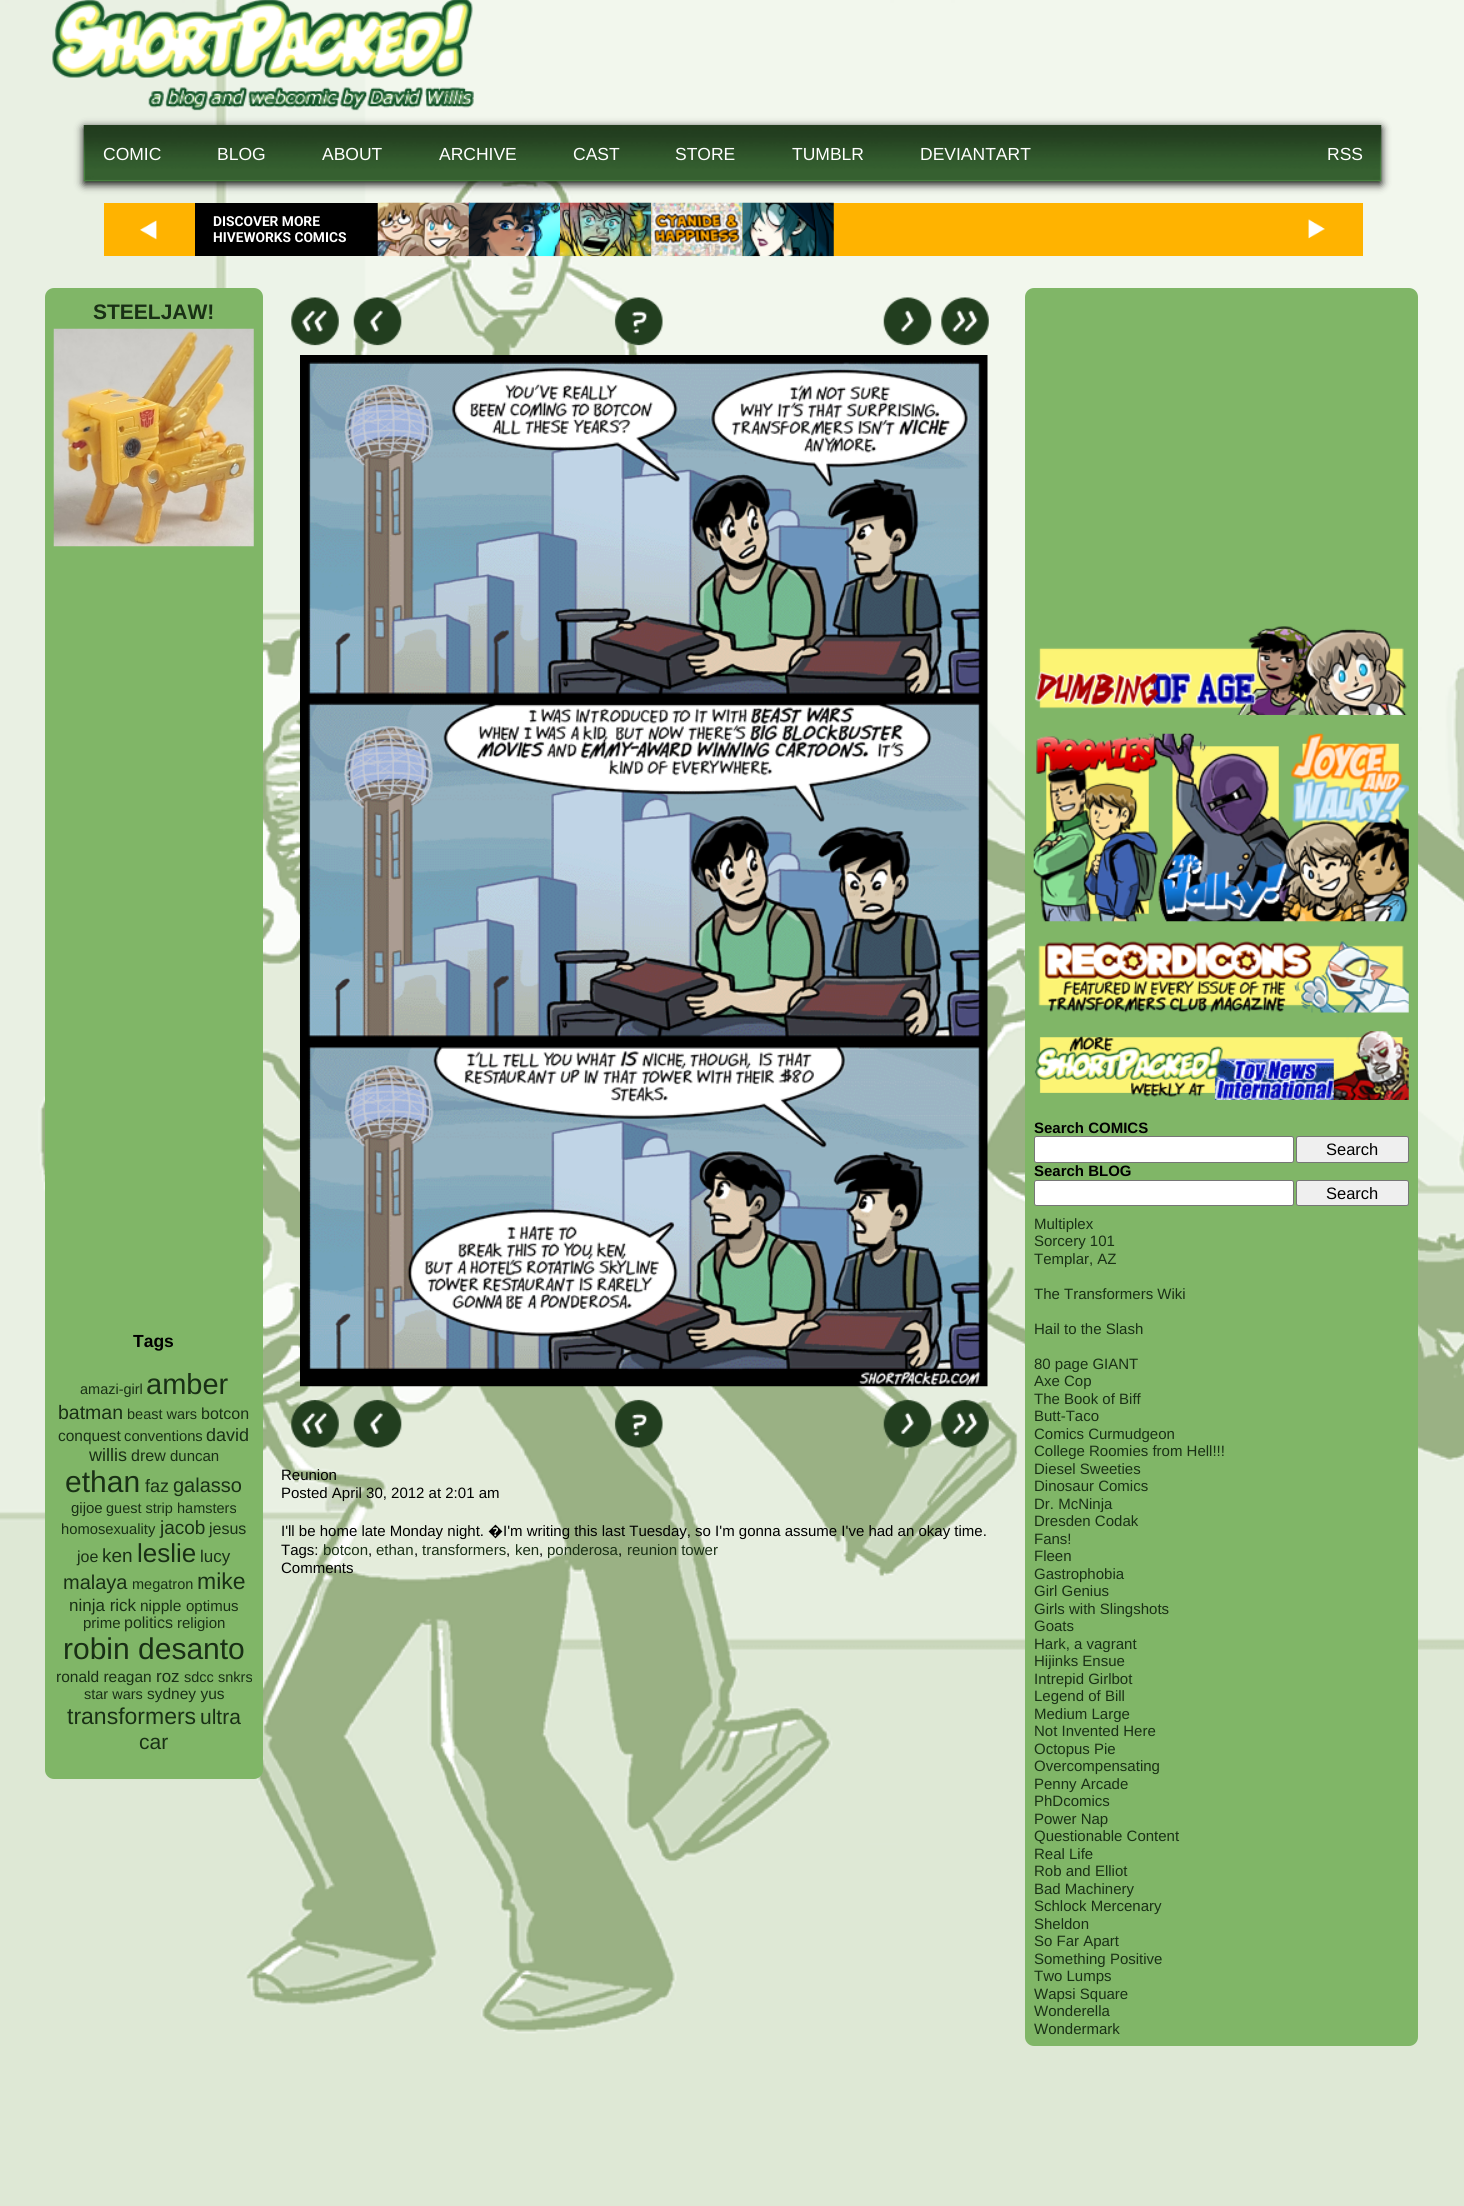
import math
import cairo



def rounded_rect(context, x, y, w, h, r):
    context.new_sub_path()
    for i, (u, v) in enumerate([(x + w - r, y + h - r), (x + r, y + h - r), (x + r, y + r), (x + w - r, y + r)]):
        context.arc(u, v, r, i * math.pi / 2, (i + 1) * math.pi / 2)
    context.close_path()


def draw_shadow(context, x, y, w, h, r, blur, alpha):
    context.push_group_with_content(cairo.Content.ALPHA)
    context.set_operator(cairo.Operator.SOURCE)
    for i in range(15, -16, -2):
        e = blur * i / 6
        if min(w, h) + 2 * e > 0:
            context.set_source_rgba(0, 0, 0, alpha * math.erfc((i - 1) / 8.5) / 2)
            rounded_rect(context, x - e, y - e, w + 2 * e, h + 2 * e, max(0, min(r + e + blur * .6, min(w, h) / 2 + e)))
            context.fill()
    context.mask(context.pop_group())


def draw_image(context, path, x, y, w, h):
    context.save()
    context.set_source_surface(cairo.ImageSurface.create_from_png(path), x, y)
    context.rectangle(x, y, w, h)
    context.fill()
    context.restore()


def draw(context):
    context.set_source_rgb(1, 1, 1)
    context.paint()
    draw_image(context, "images/1.png", 0, 0, 1464, 2206)
    context.set_source_rgb(0, 0, 0)
    draw_shadow(context, 84, 128, 1297, 56, 0, 4.5, 1)
    draw_image(context, "images/2.png", 83, 125, 1299, 57)
    draw_image(context, "images/3.png", 52, 0, 422, 111)
    context.set_source_rgb(1, 179 / 255, 0)
    context.rectangle(104, 203, 1259, 53)
    context.fill()
    draw_image(context, "images/4.png", 140, 220, 17, 20)
    context.set_source_rgb(0, 0, 0)
    context.rectangle(195, 203, 183, 53)
    context.fill()
    draw_image(context, "images/5.png", 377, 202, 93, 55)
    draw_image(context, "images/6.png", 468, 202, 92, 55)
    draw_image(context, "images/7.png", 560, 202, 92, 55)
    draw_image(context, "images/8.png", 651, 202, 92, 55)
    draw_image(context, "images/9.png", 742, 202, 92, 55)
    draw_image(context, "images/10.png", 1308, 219, 17, 20)
    context.set_source_rgb(128 / 255, 182 / 255, 103 / 255)
    rounded_rect(context, 45, 288, 218, 1491, 9)
    context.fill()
    draw_image(context, "images/11.png", 53, 328, 201, 219)
    draw_image(context, "images/12.png", 291, 297, 48, 49)
    draw_image(context, "images/13.png", 353, 297, 49, 49)
    draw_image(context, "images/14.png", 614, 297, 49, 49)
    draw_image(context, "images/15.png", 883, 297, 49, 49)
    draw_image(context, "images/16.png", 941, 297, 48, 49)
    draw_image(context, "images/17.png", 300, 355, 688, 1032)
    draw_image(context, "images/18.png", 291, 1399, 48, 49)
    draw_image(context, "images/19.png", 353, 1399, 49, 49)
    draw_image(context, "images/20.png", 614, 1399, 49, 49)
    draw_image(context, "images/21.png", 883, 1399, 49, 49)
    draw_image(context, "images/22.png", 941, 1399, 48, 49)
    rounded_rect(context, 1025, 288, 393, 1758, 9)
    context.fill()
    draw_image(context, "images/23.png", 1034, 626, 373, 89)
    draw_image(context, "images/24.png", 1033, 733, 376, 189)
    draw_image(context, "images/25.png", 1038, 941, 371, 72)
    draw_image(context, "images/26.png", 1034, 1031, 375, 69)
    context.set_source_rgb(1, 1, 1)
    rounded_rect(context, 1034.5, 1136.5, 259, 26, 2)
    context.fill_preserve()
    context.set_source_rgb(118 / 255, 118 / 255, 118 / 255)
    context.set_line_width(1)
    context.stroke()
    context.set_source_rgb(239 / 255, 239 / 255, 239 / 255)
    rounded_rect(context, 1296.5, 1136.5, 112, 26, 2)
    context.fill_preserve()
    context.set_source_rgb(118 / 255, 118 / 255, 118 / 255)
    context.stroke()
    context.set_source_rgb(1, 1, 1)
    rounded_rect(context, 1034.5, 1180.5, 259, 25, 2)
    context.fill_preserve()
    context.set_source_rgb(118 / 255, 118 / 255, 118 / 255)
    context.stroke()
    context.set_source_rgb(239 / 255, 239 / 255, 239 / 255)
    rounded_rect(context, 1296.5, 1180.5, 112, 25, 2)
    context.fill_preserve()
    context.set_source_rgb(118 / 255, 118 / 255, 118 / 255)
    context.stroke()
    context.select_font_face("Liberation Sans")
    context.set_font_size(17.5)
    context.set_source_rgb(1, 1, 1)
    context.move_to(103, 160)
    context.show_text("COMIC")
    context.move_to(217, 160)
    context.show_text("BLOG")
    context.move_to(322, 160)
    context.show_text("ABOUT")
    context.move_to(439, 160)
    context.show_text("ARCHIVE")
    context.move_to(573, 160)
    context.show_text("CAST")
    context.move_to(675, 160)
    context.show_text("STORE")
    context.move_to(792, 160)
    context.show_text("TUMBLR")
    context.move_to(920, 160)
    context.show_text("DEVIANTART")
    context.move_to(1327, 160)
    context.show_text("RSS")
    context.select_font_face("Roboto", cairo.FontSlant.NORMAL, cairo.FontWeight.BOLD)
    context.set_font_size(13.75)
    context.move_to(213, 226)
    context.show_text("DISCOVER MORE")
    context.move_to(213, 242)
    context.show_text("HIVEWORKS COMICS")
    context.select_font_face("Liberation Sans", cairo.FontSlant.NORMAL, cairo.FontWeight.BOLD)
    context.set_font_size(21)
    context.set_source_rgb(25 / 255, 48 / 255, 21 / 255)
    context.move_to(93, 319)
    context.show_text("STEELJAW!")
    context.set_font_size(17.5)
    context.set_source_rgb(0, 0, 0)
    context.move_to(133, 1347)
    context.show_text("Tags")
    context.select_font_face("Liberation Sans")
    context.set_font_size(14.5)
    context.set_source_rgb(25 / 255, 48 / 255, 21 / 255)
    context.move_to(80, 1394)
    context.show_text("amazi-girl")
    context.set_font_size(29)
    context.move_to(146, 1394)
    context.show_text("amber")
    context.set_font_size(19.5)
    context.move_to(58, 1419)
    context.show_text("batman")
    context.set_font_size(14.5)
    context.move_to(127, 1419)
    context.show_text("beast wars")
    context.set_font_size(16)
    context.move_to(201, 1419)
    context.show_text("botcon")
    context.set_font_size(15.5)
    context.move_to(58, 1441)
    context.show_text("conquest")
    context.set_font_size(14.75)
    context.move_to(124, 1441)
    context.show_text("conventions")
    context.set_font_size(18)
    context.move_to(206, 1441)
    context.show_text("david")
    context.move_to(89, 1461)
    context.show_text("willis")
    context.set_font_size(16)
    context.move_to(131, 1461)
    context.show_text("drew")
    context.set_font_size(15)
    context.move_to(170, 1461)
    context.show_text("duncan")
    context.set_font_size(30)
    context.move_to(65, 1492)
    context.show_text("ethan")
    context.set_font_size(18)
    context.move_to(145, 1492)
    context.show_text("faz")
    context.set_font_size(20)
    context.move_to(173, 1492)
    context.show_text("galasso")
    context.set_font_size(15)
    context.move_to(71, 1513)
    context.show_text("gijoe")
    context.set_font_size(14.5)
    context.move_to(106, 1513)
    context.show_text("guest strip")
    context.move_to(177, 1513)
    context.show_text("hamsters")
    context.set_font_size(14.75)
    context.move_to(61, 1534)
    context.show_text("homosexuality")
    context.set_font_size(19)
    context.move_to(160, 1534)
    context.show_text("jacob")
    context.set_font_size(16)
    context.move_to(209, 1534)
    context.show_text("jesus")
    context.move_to(77, 1562)
    context.show_text("joe")
    context.set_font_size(19)
    context.move_to(102, 1562)
    context.show_text("ken")
    context.set_font_size(26)
    context.move_to(137, 1562)
    context.show_text("leslie")
    context.set_font_size(17)
    context.move_to(200, 1562)
    context.show_text("lucy")
    context.set_font_size(20)
    context.move_to(63, 1589)
    context.show_text("malaya")
    context.set_font_size(14.5)
    context.move_to(132, 1589)
    context.show_text("megatron")
    context.set_font_size(23)
    context.move_to(197, 1589)
    context.show_text("mike")
    context.set_font_size(17)
    context.move_to(69, 1611)
    context.show_text("ninja rick")
    context.set_font_size(15.5)
    context.move_to(140, 1611)
    context.show_text("nipple")
    context.set_font_size(15)
    context.move_to(186, 1611)
    context.show_text("optimus")
    context.move_to(83, 1628)
    context.show_text("prime")
    context.set_font_size(16)
    context.move_to(124, 1628)
    context.show_text("politics")
    context.set_font_size(15)
    context.move_to(177, 1628)
    context.show_text("religion")
    context.set_font_size(30)
    context.move_to(63, 1659)
    context.show_text("robin desanto")
    context.set_font_size(15.5)
    context.move_to(56, 1682)
    context.show_text("ronald reagan")
    context.set_font_size(17)
    context.move_to(156, 1682)
    context.show_text("roz")
    context.set_font_size(14.5)
    context.move_to(184, 1682)
    context.show_text("sdcc")
    context.move_to(218, 1682)
    context.show_text("snkrs")
    context.move_to(84, 1699)
    context.show_text("star wars")
    context.set_font_size(15.5)
    context.move_to(147, 1699)
    context.show_text("sydney yus")
    context.set_font_size(23)
    context.move_to(67, 1724)
    context.show_text("transformers")
    context.set_font_size(21)
    context.move_to(200, 1724)
    context.show_text("ultra")
    context.move_to(139, 1749)
    context.show_text("car")
    context.set_font_size(15)
    context.set_source_rgb(0, 0, 0)
    context.move_to(281, 1480)
    context.show_text("Reunion")
    context.move_to(281, 1498)
    context.show_text("Posted April 30, 2012 at 2:01 am")
    context.move_to(281, 1536)
    context.show_text("I'll be home late Monday night.")
    context.select_font_face("Noto Sans")
    context.move_to(488, 1536)
    context.show_text("�")
    context.select_font_face("Liberation Sans")
    context.move_to(503, 1536)
    context.show_text("I'm writing this last Tuesday, so I'm gonna assume I've had an okay time.")
    context.move_to(281, 1555)
    context.show_text("Tags:")
    context.set_source_rgb(25 / 255, 48 / 255, 21 / 255)
    context.move_to(323, 1555)
    context.show_text("botcon")
    context.set_source_rgb(0, 0, 0)
    context.move_to(368, 1555)
    context.show_text(",")
    context.set_source_rgb(25 / 255, 48 / 255, 21 / 255)
    context.move_to(376, 1555)
    context.show_text("ethan")
    context.set_source_rgb(0, 0, 0)
    context.move_to(414, 1555)
    context.show_text(",")
    context.set_source_rgb(25 / 255, 48 / 255, 21 / 255)
    context.move_to(422, 1555)
    context.show_text("transformers")
    context.set_source_rgb(0, 0, 0)
    context.move_to(506, 1555)
    context.show_text(",")
    context.set_source_rgb(25 / 255, 48 / 255, 21 / 255)
    context.move_to(515, 1555)
    context.show_text("ken")
    context.set_source_rgb(0, 0, 0)
    context.move_to(539, 1555)
    context.show_text(",")
    context.set_source_rgb(25 / 255, 48 / 255, 21 / 255)
    context.move_to(547, 1555)
    context.show_text("ponderosa")
    context.set_source_rgb(0, 0, 0)
    context.move_to(618, 1555)
    context.show_text(",")
    context.set_source_rgb(25 / 255, 48 / 255, 21 / 255)
    context.move_to(627, 1555)
    context.show_text("reunion tower")
    context.set_source_rgb(0, 0, 0)
    context.move_to(281, 1573)
    context.show_text("Comments")
    context.select_font_face("Liberation Sans", cairo.FontSlant.NORMAL, cairo.FontWeight.BOLD)
    context.move_to(1034, 1133)
    context.show_text("Search COMICS")
    context.select_font_face("Liberation Sans")
    context.set_font_size(16.5)
    context.move_to(1326, 1155)
    context.show_text("Search")
    context.select_font_face("Liberation Sans", cairo.FontSlant.NORMAL, cairo.FontWeight.BOLD)
    context.set_font_size(15)
    context.move_to(1034, 1176)
    context.show_text("Search BLOG")
    context.select_font_face("Liberation Sans")
    context.set_font_size(16.5)
    context.move_to(1326, 1199)
    context.show_text("Search")
    context.set_font_size(15)
    context.set_source_rgb(25 / 255, 48 / 255, 21 / 255)
    context.move_to(1034, 1229)
    context.show_text("Multiplex")
    context.move_to(1034, 1246)
    context.show_text("Sorcery 101")
    context.move_to(1034, 1264)
    context.show_text("Templar, AZ")
    context.move_to(1034, 1299)
    context.show_text("The Transformers Wiki")
    context.move_to(1034, 1334)
    context.show_text("Hail to the Slash")
    context.move_to(1034, 1369)
    context.show_text("80 page GIANT")
    context.move_to(1034, 1386)
    context.show_text("Axe Cop")
    context.move_to(1034, 1404)
    context.show_text("The Book of Biff")
    context.move_to(1034, 1421)
    context.show_text("Butt-Taco")
    context.move_to(1034, 1439)
    context.show_text("Comics Curmudgeon")
    context.move_to(1034, 1456)
    context.show_text("College Roomies from Hell!!!")
    context.move_to(1034, 1474)
    context.show_text("Diesel Sweeties")
    context.move_to(1034, 1491)
    context.show_text("Dinosaur Comics")
    context.move_to(1034, 1509)
    context.show_text("Dr. McNinja")
    context.move_to(1034, 1526)
    context.show_text("Dresden Codak")
    context.move_to(1034, 1544)
    context.show_text("Fans!")
    context.move_to(1034, 1561)
    context.show_text("Fleen")
    context.move_to(1034, 1579)
    context.show_text("Gastrophobia")
    context.move_to(1034, 1596)
    context.show_text("Girl Genius")
    context.move_to(1034, 1614)
    context.show_text("Girls with Slingshots")
    context.move_to(1034, 1631)
    context.show_text("Goats")
    context.move_to(1034, 1649)
    context.show_text("Hark, a vagrant")
    context.move_to(1034, 1666)
    context.show_text("Hijinks Ensue")
    context.move_to(1034, 1684)
    context.show_text("Intrepid Girlbot")
    context.move_to(1034, 1701)
    context.show_text("Legend of Bill")
    context.move_to(1034, 1719)
    context.show_text("Medium Large")
    context.move_to(1034, 1736)
    context.show_text("Not Invented Here")
    context.move_to(1034, 1754)
    context.show_text("Octopus Pie")
    context.move_to(1034, 1771)
    context.show_text("Overcompensating")
    context.move_to(1034, 1789)
    context.show_text("Penny Arcade")
    context.move_to(1034, 1806)
    context.show_text("PhDcomics")
    context.move_to(1034, 1824)
    context.show_text("Power Nap")
    context.move_to(1034, 1841)
    context.show_text("Questionable Content")
    context.move_to(1034, 1859)
    context.show_text("Real Life")
    context.move_to(1034, 1876)
    context.show_text("Rob and Elliot")
    context.move_to(1034, 1894)
    context.show_text("Bad Machinery")
    context.move_to(1034, 1911)
    context.show_text("Schlock Mercenary")
    context.move_to(1034, 1929)
    context.show_text("Sheldon")
    context.move_to(1034, 1946)
    context.show_text("So Far Apart")
    context.move_to(1034, 1964)
    context.show_text("Something Positive")
    context.move_to(1034, 1981)
    context.show_text("Two Lumps")
    context.move_to(1034, 1999)
    context.show_text("Wapsi Square")
    context.move_to(1034, 2016)
    context.show_text("Wonderella")
    context.move_to(1034, 2034)
    context.show_text("Wondermark")


surface = cairo.ImageSurface(cairo.Format.RGB24, 1464, 2206)
context = cairo.Context(surface)
options = cairo.FontOptions()
options.set_hint_metrics(cairo.HintMetrics.OFF)
options.set_hint_style(cairo.HintStyle.NONE)
context.set_font_options(options)
context.set_miter_limit(4)
draw(context)
surface.write_to_png("out.png")
